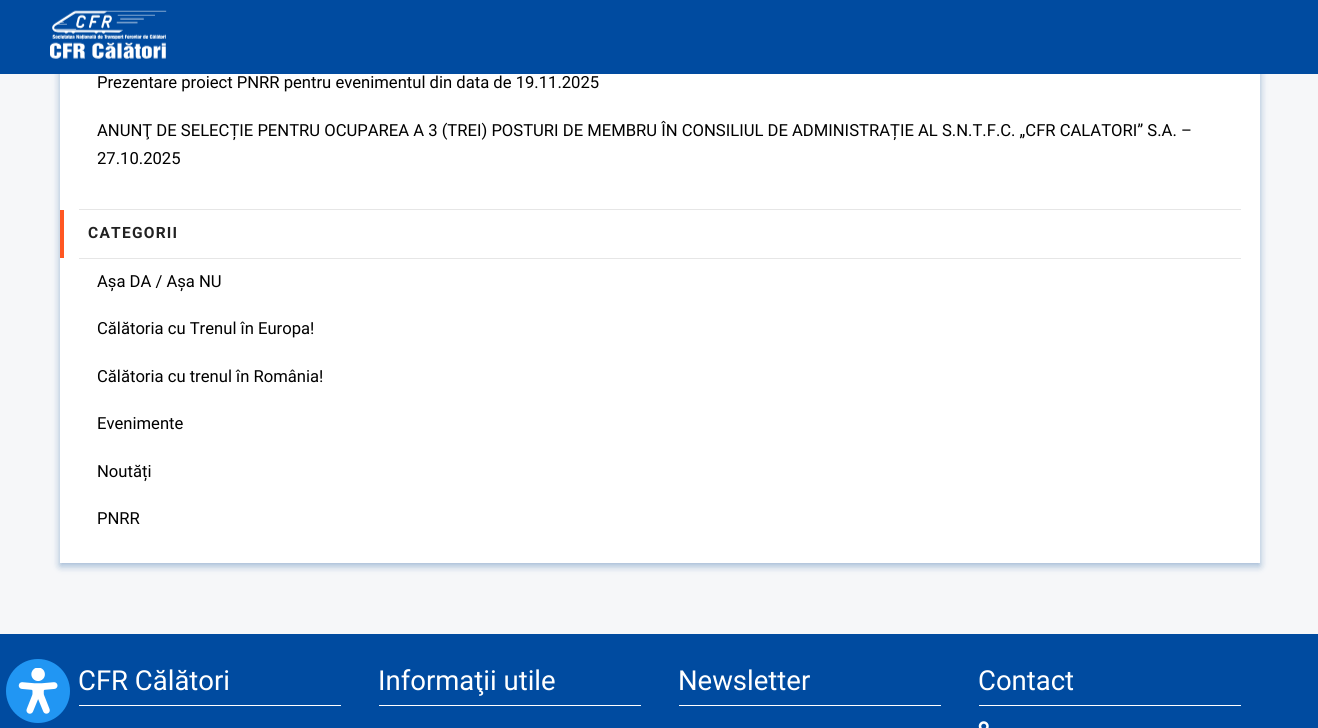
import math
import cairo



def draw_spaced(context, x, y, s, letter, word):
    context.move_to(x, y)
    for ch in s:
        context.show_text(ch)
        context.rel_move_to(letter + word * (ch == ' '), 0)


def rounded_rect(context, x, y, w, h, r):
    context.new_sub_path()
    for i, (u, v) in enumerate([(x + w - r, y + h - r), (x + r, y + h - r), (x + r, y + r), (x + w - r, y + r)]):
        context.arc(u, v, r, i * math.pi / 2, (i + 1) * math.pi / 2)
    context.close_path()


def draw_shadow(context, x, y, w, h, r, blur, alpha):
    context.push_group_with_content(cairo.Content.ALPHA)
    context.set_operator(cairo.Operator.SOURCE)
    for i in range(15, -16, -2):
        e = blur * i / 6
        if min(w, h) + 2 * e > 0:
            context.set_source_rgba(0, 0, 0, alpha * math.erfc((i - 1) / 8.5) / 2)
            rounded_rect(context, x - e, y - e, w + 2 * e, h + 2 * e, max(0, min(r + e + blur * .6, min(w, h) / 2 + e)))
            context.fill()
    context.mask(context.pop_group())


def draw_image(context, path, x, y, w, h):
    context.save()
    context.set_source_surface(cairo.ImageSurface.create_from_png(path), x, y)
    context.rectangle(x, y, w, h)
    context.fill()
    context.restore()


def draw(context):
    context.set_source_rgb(246 / 255, 247 / 255, 249 / 255)
    context.paint()
    context.set_source_rgb(0, 75 / 255, 160 / 255)
    context.rectangle(0, 634, 1318, 94)
    context.fill()
    context.set_source_rgb(33 / 255, 150 / 255, 243 / 255)
    context.arc(38, 691, 32, 0, 2 * math.pi)
    context.fill()
    draw_image(context, "images/1.png", 18, 668, 40, 46)
    context.set_source_rgb(0, 70 / 255, 144 / 255)
    draw_shadow(context, 60, -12, 1200, 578, 0, 4, 0.23)
    draw_shadow(context, 60, -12, 1200, 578, 0, 4, 0.16)
    context.set_source_rgb(0, 75 / 255, 160 / 255)
    context.rectangle(0, 0, 1318, 74)
    context.fill()
    draw_image(context, "images/2.png", 50, 10, 117, 49)
    context.set_source_rgb(1, 1, 1)
    context.rectangle(60, 74, 1200, 489)
    context.fill()
    context.set_source_rgb(230 / 255, 230 / 255, 230 / 255)
    context.rectangle(79, 209, 1162, 1)
    context.fill()
    context.rectangle(79, 258, 1162, 1)
    context.fill()
    context.set_source_rgb(1, 87 / 255, 34 / 255)
    context.rectangle(60, 210, 4, 48)
    context.fill()
    context.set_source_rgb(1, 1, 1)
    context.rectangle(79, 705, 262, 1)
    context.fill()
    context.rectangle(379, 705, 262, 1)
    context.fill()
    context.rectangle(679, 705, 262, 1)
    context.fill()
    context.rectangle(979, 705, 262, 1)
    context.fill()
    draw_image(context, "images/3.png", 978, 721, 11, 7)
    context.select_font_face("Roboto")
    context.set_font_size(16.62)
    context.set_source_rgb(0, 0, 0)
    context.move_to(97, 88)
    context.show_text("Prezentare proiect PNRR pentru evenimentul din data de 19.11.2025")
    context.move_to(97, 136)
    context.show_text("ANUNŢ DE SELECȚIE PENTRU OCUPAREA A 3 (TREI) POSTURI DE MEMBRU ÎN CONSILIUL DE ADMINISTRAȚIE AL S.N.T.F.C. „CFR CALATORI” S.A. –")
    context.move_to(97, 164)
    context.show_text("27.10.2025")
    context.select_font_face("Roboto", cairo.FontSlant.NORMAL, cairo.FontWeight.BOLD)
    context.set_font_size(15.5)
    context.set_source_rgb(33 / 255, 33 / 255, 33 / 255)
    draw_spaced(context, 88, 238, "CATEGORII", 1.25, 0)
    context.select_font_face("Roboto")
    context.set_font_size(16.62)
    context.set_source_rgb(0, 0, 0)
    context.move_to(97, 287)
    context.show_text("Așa DA / Așa NU")
    context.move_to(97, 334)
    context.show_text("Călătoria cu Trenul în Europa!")
    context.move_to(97, 382)
    context.show_text("Călătoria cu trenul în România!")
    context.move_to(97, 429)
    context.show_text("Evenimente")
    context.move_to(97, 477)
    context.show_text("Noutăți")
    context.move_to(97, 524)
    context.show_text("PNRR")
    context.set_font_size(27.5)
    context.set_source_rgb(1, 1, 1)
    context.move_to(78, 690)
    context.show_text("CFR Călători")
    context.move_to(378, 690)
    context.show_text("Informaţii utile")
    context.move_to(678, 690)
    context.show_text("Newsletter")
    context.move_to(978, 690)
    context.show_text("Contact")


surface = cairo.ImageSurface(cairo.Format.RGB24, 1318, 728)
context = cairo.Context(surface)
options = cairo.FontOptions()
options.set_hint_metrics(cairo.HintMetrics.OFF)
options.set_hint_style(cairo.HintStyle.NONE)
context.set_font_options(options)
context.set_miter_limit(4)
draw(context)
surface.write_to_png("out.png")
